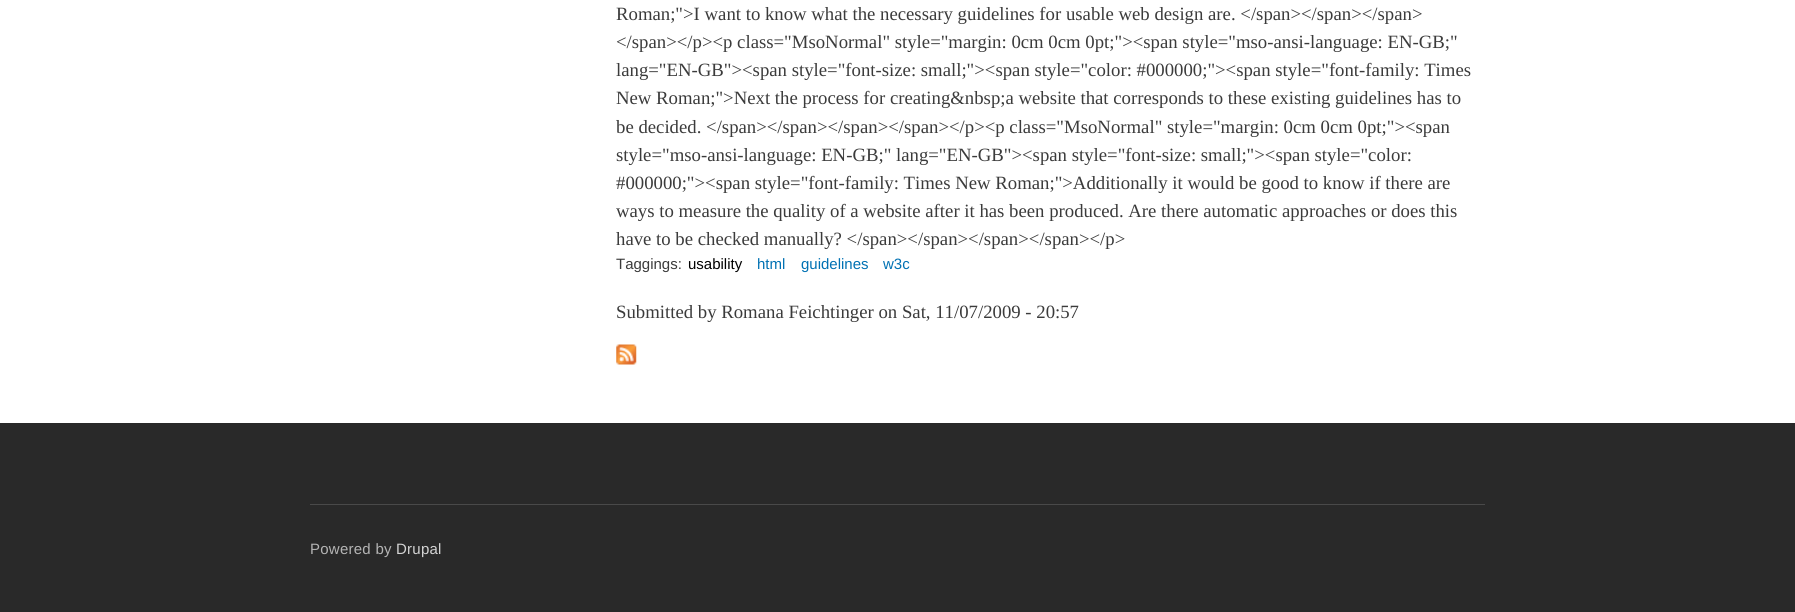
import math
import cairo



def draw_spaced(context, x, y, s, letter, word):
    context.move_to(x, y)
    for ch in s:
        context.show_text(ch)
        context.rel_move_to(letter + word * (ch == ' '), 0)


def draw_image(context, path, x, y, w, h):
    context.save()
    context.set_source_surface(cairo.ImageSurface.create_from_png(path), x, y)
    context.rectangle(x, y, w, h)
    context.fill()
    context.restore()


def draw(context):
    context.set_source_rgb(1, 1, 1)
    context.paint()
    draw_image(context, "images/1.png", 616, 344, 21, 21)
    context.set_source_rgb(41 / 255, 41 / 255, 41 / 255)
    context.rectangle(0, 423, 1795, 189)
    context.fill()
    context.set_source_rgb(73 / 255, 73 / 255, 73 / 255)
    context.rectangle(310, 504, 1175, 1)
    context.fill()
    context.select_font_face("Liberation Serif")
    context.set_font_size(18.75)
    context.set_source_rgb(59 / 255, 59 / 255, 59 / 255)
    context.move_to(616, 20)
    context.show_text("Roman;\">I want to know what the necessary guidelines for usable web design are. </span></span></span>")
    context.move_to(616, 48)
    context.show_text("</span></p><p class=\"MsoNormal\" style=\"margin: 0cm 0cm 0pt;\"><span style=\"mso-ansi-language: EN-GB;\"")
    context.move_to(616, 76)
    context.show_text("lang=\"EN-GB\"><span style=\"font-size: small;\"><span style=\"color: #000000;\"><span style=\"font-family: Times")
    context.move_to(616, 104)
    context.show_text("New Roman;\">Next the process for creating&nbsp;a website that corresponds to these existing guidelines has to")
    context.move_to(616, 133)
    context.show_text("be decided. </span></span></span></span></p><p class=\"MsoNormal\" style=\"margin: 0cm 0cm 0pt;\"><span")
    context.move_to(616, 161)
    context.show_text("style=\"mso-ansi-language: EN-GB;\" lang=\"EN-GB\"><span style=\"font-size: small;\"><span style=\"color:")
    context.move_to(616, 189)
    context.show_text("#000000;\"><span style=\"font-family: Times New Roman;\">Additionally it would be good to know if there are")
    context.move_to(616, 217)
    context.show_text("ways to measure the quality of a website after it has been produced. Are there automatic approaches or does this")
    context.move_to(616, 245)
    context.show_text("have to be checked manually? </span></span></span></span></p>")
    context.select_font_face("Liberation Sans")
    context.set_font_size(15)
    context.move_to(616, 269)
    context.show_text("Taggings:")
    context.set_source_rgb(0, 0, 0)
    context.move_to(688, 269)
    context.show_text("usability")
    context.set_source_rgb(0, 113 / 255, 179 / 255)
    context.move_to(757, 269)
    context.show_text("html")
    context.move_to(801, 269)
    context.show_text("guidelines")
    context.move_to(883, 269)
    context.show_text("w3c")
    context.select_font_face("Liberation Serif")
    context.set_font_size(18.75)
    context.set_source_rgb(59 / 255, 59 / 255, 59 / 255)
    context.move_to(616, 318)
    context.show_text("Submitted by Romana Feichtinger on Sat, 11/07/2009 - 20:57")
    context.select_font_face("Liberation Sans")
    context.set_font_size(15)
    context.set_source_rgb(180 / 255, 180 / 255, 180 / 255)
    draw_spaced(context, 310, 554, "Powered by", 0.25, 0)
    context.set_source_rgb(212 / 255, 212 / 255, 212 / 255)
    draw_spaced(context, 396, 554, "Drupal", 0.25, 0)


surface = cairo.ImageSurface(cairo.Format.RGB24, 1795, 612)
context = cairo.Context(surface)
options = cairo.FontOptions()
options.set_hint_metrics(cairo.HintMetrics.OFF)
options.set_hint_style(cairo.HintStyle.NONE)
context.set_font_options(options)
context.set_miter_limit(4)
draw(context)
surface.write_to_png("out.png")
